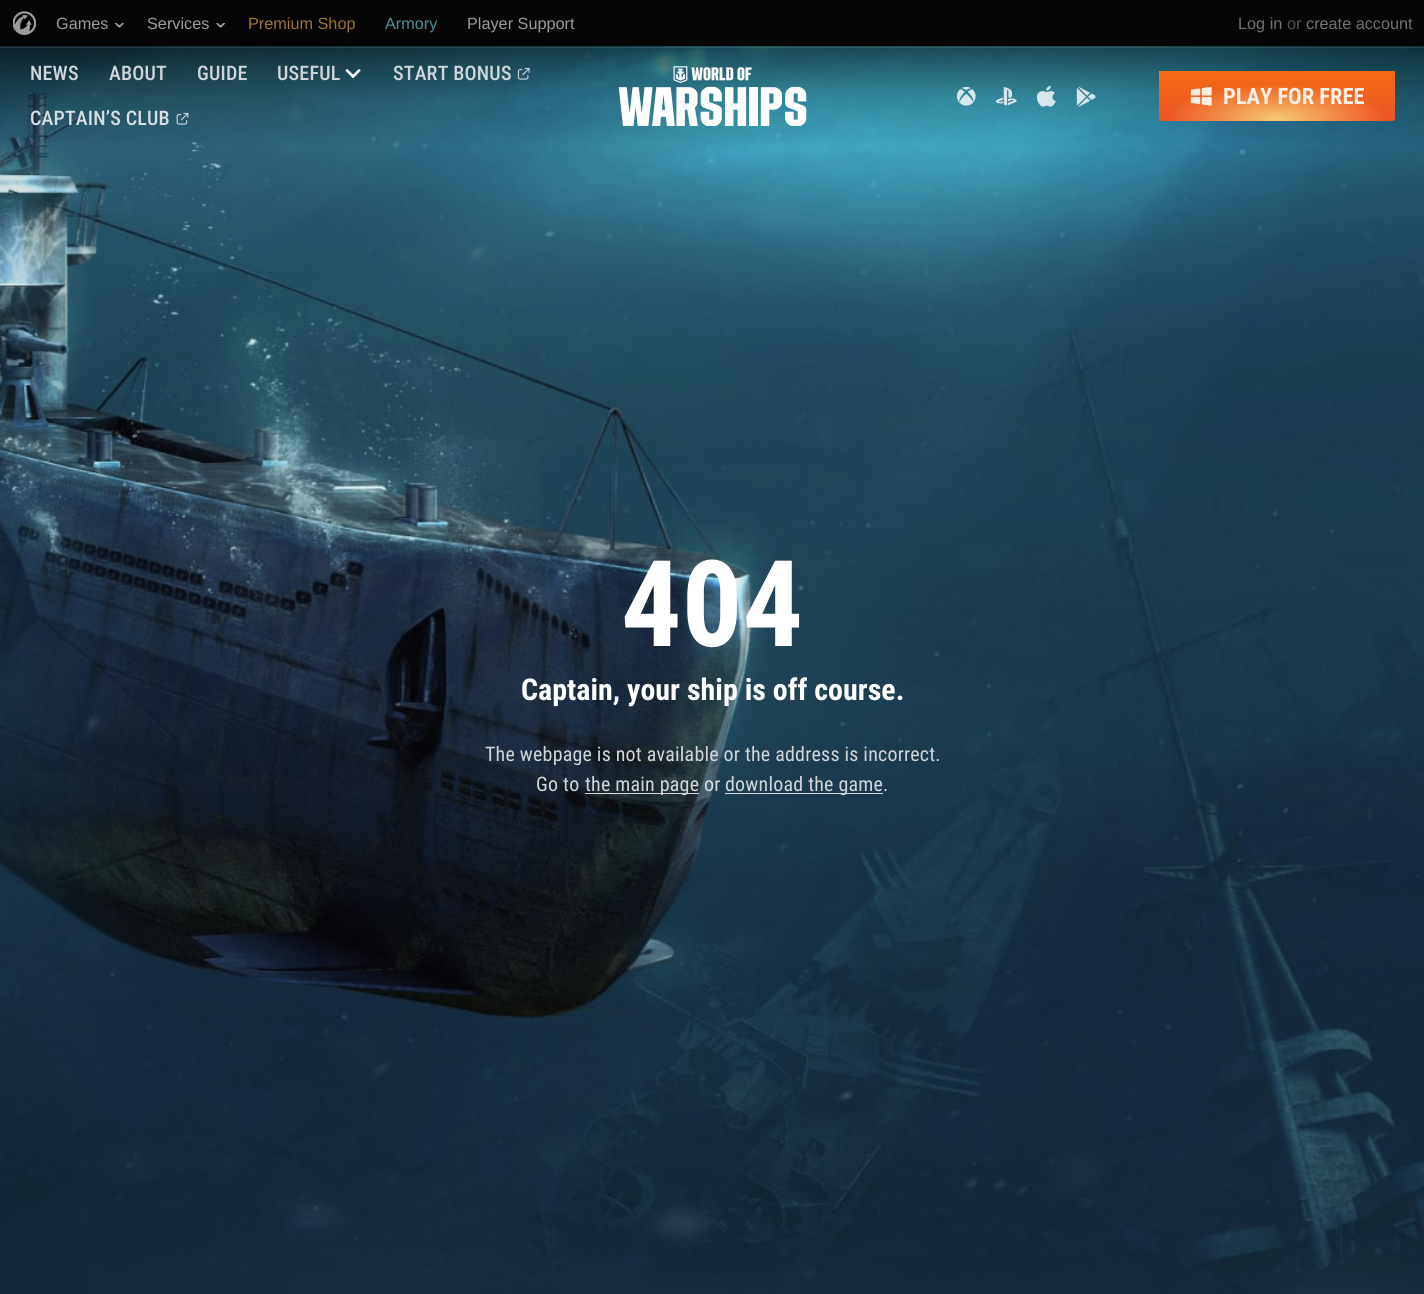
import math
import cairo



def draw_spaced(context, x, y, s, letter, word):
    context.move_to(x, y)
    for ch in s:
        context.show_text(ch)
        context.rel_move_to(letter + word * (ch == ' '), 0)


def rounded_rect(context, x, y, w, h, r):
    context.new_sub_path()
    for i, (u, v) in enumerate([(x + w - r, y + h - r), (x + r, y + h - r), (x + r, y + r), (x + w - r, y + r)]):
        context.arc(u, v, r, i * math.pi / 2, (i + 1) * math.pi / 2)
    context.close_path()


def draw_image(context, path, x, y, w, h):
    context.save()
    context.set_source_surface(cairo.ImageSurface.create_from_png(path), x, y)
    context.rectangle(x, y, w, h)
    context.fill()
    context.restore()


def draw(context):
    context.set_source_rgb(1, 1, 1)
    context.paint()
    context.set_source_rgb(5 / 255, 5 / 255, 5 / 255)
    context.rectangle(0, 0, 1424, 46)
    context.fill()
    draw_image(context, "images/13.png", 0, 46, 1424, 1248)
    context.rectangle(-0.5, -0.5, 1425, 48)
    context.set_source_rgba(1, 1, 1, 0.1)
    context.set_line_width(1)
    context.stroke()
    draw_image(context, "images/1.png", 13, 11, 23, 24)
    draw_image(context, "images/2.png", 115, 23, 9, 5)
    draw_image(context, "images/3.png", 216, 23, 9, 5)
    draw_image(context, "images/4.png", 345, 69, 16, 10)
    draw_image(context, "images/5.png", 517, 67, 13, 13)
    draw_image(context, "images/6.png", 176, 112, 13, 13)
    draw_image(context, "images/7.png", 618, 66, 189, 60)
    draw_image(context, "images/8.png", 956, 86, 20, 20)
    draw_image(context, "images/9.png", 995, 87, 22, 19)
    draw_image(context, "images/10.png", 1036, 85, 20, 22)
    draw_image(context, "images/11.png", 1076, 86, 20, 21)
    gradient = cairo.LinearGradient(1277, 71, 1277, 121)
    gradient.add_color_stop_rgba(0, 245 / 255, 105 / 255, 20 / 255, 1)
    gradient.add_color_stop_rgba(1, 235 / 255, 85 / 255, 38 / 255, 1)
    context.set_source(gradient)
    rounded_rect(context, 1159, 71, 236, 50, 2.5)
    context.fill()
    gradient = cairo.RadialGradient(0, 0, 0, 0, 0, 1)
    gradient.set_matrix(cairo.Matrix(1 / 202, 0, 0, 1 / 65, -1 * 1277 / 202, -1 * 119 / 65))
    gradient.add_color_stop_rgba(0, 245 / 255, 201 / 255, 116 / 255, 1)
    gradient.add_color_stop_rgba(0.54, 245 / 255, 201 / 255, 116 / 255, 0)
    context.set_source(gradient)
    context.rectangle(1170, 85, 214, 36)
    context.fill()
    context.set_source_rgb(229 / 255, 130 / 255, 70 / 255)
    context.rectangle(1159, 71, 1, 2)
    context.fill()
    context.set_source_rgb(228 / 255, 128 / 255, 69 / 255)
    context.rectangle(1394, 71, 1, 2)
    context.fill()
    draw_image(context, "images/12.png", 1190, 86, 22, 20)
    context.set_source_rgba(1, 1, 1, 0.8)
    context.rectangle(585, 793, 114, 1)
    context.fill()
    context.rectangle(725, 793, 158, 1)
    context.fill()
    context.select_font_face("Liberation Sans")
    context.set_font_size(16.25)
    context.set_source_rgb(155 / 255, 155 / 255, 155 / 255)
    context.move_to(56, 29)
    context.show_text("Games")
    context.move_to(147, 29)
    context.show_text("Services")
    context.set_source_rgb(155 / 255, 116 / 255, 48 / 255)
    context.move_to(248, 29)
    context.show_text("Premium Shop")
    context.set_source_rgb(73 / 255, 145 / 255, 145 / 255)
    context.move_to(385, 29)
    context.show_text("Armory")
    context.set_source_rgb(155 / 255, 155 / 255, 155 / 255)
    context.move_to(467, 29)
    context.show_text("Player Support")
    context.set_source_rgb(112 / 255, 114 / 255, 115 / 255)
    context.move_to(1238, 29)
    context.show_text("Log in")
    context.set_source_rgb(82 / 255, 84 / 255, 84 / 255)
    context.move_to(1287, 29)
    context.show_text("or")
    context.set_source_rgb(112 / 255, 114 / 255, 115 / 255)
    context.move_to(1306, 29)
    context.show_text("create account")
    context.select_font_face("Roboto Condensed Medium")
    context.set_font_size(20)
    context.set_source_rgb(210 / 255, 214 / 255, 217 / 255)
    draw_spaced(context, 30, 80, "NEWS", 0.2, 0)
    draw_spaced(context, 109, 80, "ABOUT", 0.2, 0)
    draw_spaced(context, 197, 80, "GUIDE", 0.2, 0)
    draw_spaced(context, 277, 80, "USEFUL", 0.2, 0)
    draw_spaced(context, 393, 80, "START BONUS", 0.2, 0)
    context.set_source_rgb(216 / 255, 221 / 255, 224 / 255)
    draw_spaced(context, 30, 125, "CAPTAIN’S CLUB", 0.2, 0)
    context.select_font_face("Roboto Condensed", cairo.FontSlant.NORMAL, cairo.FontWeight.BOLD)
    context.set_font_size(22.5)
    context.set_source_rgb(253 / 255, 239 / 255, 230 / 255)
    context.move_to(1223, 104)
    context.show_text("PLAY FOR FREE")
    context.set_font_size(120)
    context.set_source_rgb(1, 1, 1)
    context.move_to(621, 646)
    context.show_text("404")
    context.set_font_size(30)
    context.move_to(521, 700)
    context.show_text("Captain, your ship is off course.")
    context.select_font_face("Roboto Condensed")
    context.set_font_size(20)
    context.set_source_rgb(210 / 255, 214 / 255, 217 / 255)
    draw_spaced(context, 485, 761, "The webpage is not available or the address is incorrect.", 0.2, 0)
    draw_spaced(context, 536, 791, "Go to", 0.2, 0)
    draw_spaced(context, 585, 791, "the main page", 0.2, 0)
    context.set_source_rgb(216 / 255, 221 / 255, 224 / 255)
    draw_spaced(context, 704, 791, "or", 0.2, 0)
    context.set_source_rgb(210 / 255, 214 / 255, 217 / 255)
    draw_spaced(context, 725, 791, "download the game", 0.2, 0)
    draw_spaced(context, 883, 791, ".", 0.2, 0)


surface = cairo.ImageSurface(cairo.Format.RGB24, 1424, 1294)
context = cairo.Context(surface)
options = cairo.FontOptions()
options.set_hint_metrics(cairo.HintMetrics.OFF)
options.set_hint_style(cairo.HintStyle.NONE)
context.set_font_options(options)
context.set_miter_limit(4)
draw(context)
surface.write_to_png("out.png")
